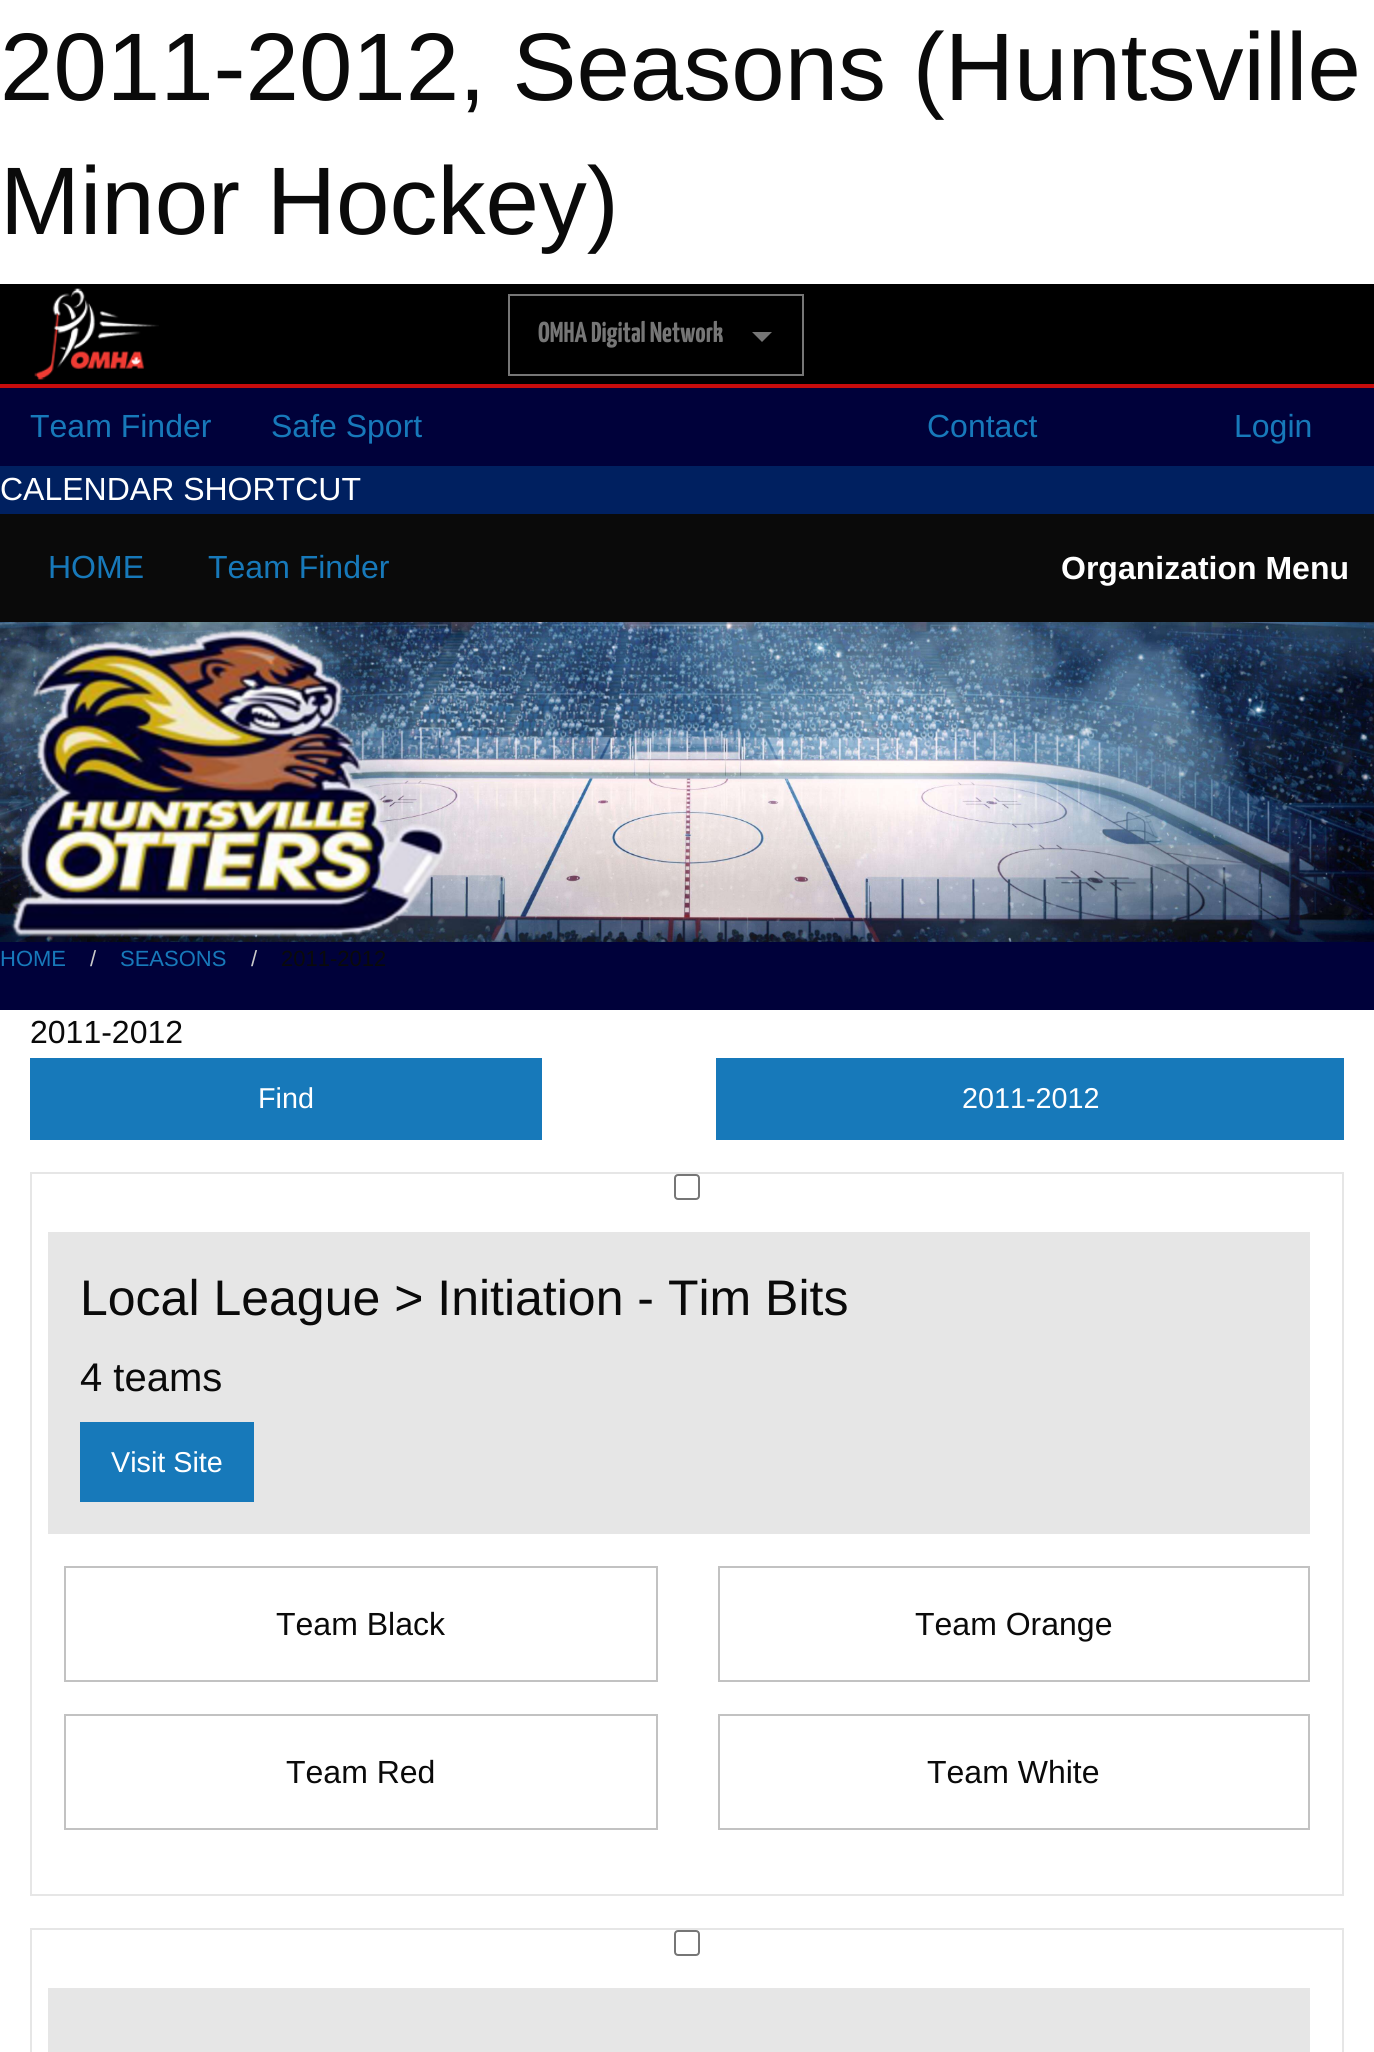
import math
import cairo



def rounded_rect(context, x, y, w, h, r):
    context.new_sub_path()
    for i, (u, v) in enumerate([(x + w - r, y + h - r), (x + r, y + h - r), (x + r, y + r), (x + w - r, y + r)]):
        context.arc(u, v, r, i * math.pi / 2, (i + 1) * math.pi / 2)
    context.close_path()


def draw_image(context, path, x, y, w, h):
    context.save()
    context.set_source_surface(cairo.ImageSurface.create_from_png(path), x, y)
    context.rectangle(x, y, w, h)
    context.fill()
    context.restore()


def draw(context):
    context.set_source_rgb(1, 1, 1)
    context.paint()
    context.set_source_rgb(0, 0, 0)
    context.rectangle(0, 284, 1374, 100)
    context.fill()
    context.set_source_rgb(198 / 255, 12 / 255, 12 / 255)
    context.rectangle(0, 384, 1374, 4)
    context.fill()
    draw_image(context, "images/1.png", 34, 288, 125, 92)
    context.rectangle(509, 295, 294, 80)
    context.set_source_rgb(118 / 255, 118 / 255, 118 / 255)
    context.stroke()
    context.new_path()
    context.move_to(752, 332)
    context.line_to(772, 332)
    context.line_to(762, 342)
    context.close_path()
    context.fill()
    context.set_source_rgb(0, 1 / 255, 58 / 255)
    context.rectangle(0, 388, 1374, 622)
    context.fill()
    context.set_source_rgb(0, 32 / 255, 96 / 255)
    context.rectangle(0, 466, 1374, 48)
    context.fill()
    context.set_source_rgb(10 / 255, 10 / 255, 10 / 255)
    context.rectangle(0, 514, 1374, 108)
    context.fill()
    draw_image(context, "images/2.png", 0, 622, 1374, 320)
    draw_image(context, "images/3.png", 11, 629, 437, 308)
    context.set_source_rgb(23 / 255, 121 / 255, 186 / 255)
    context.rectangle(30, 1058, 512, 82)
    context.fill()
    context.rectangle(716, 1058, 628, 82)
    context.fill()
    context.rectangle(31, 1173, 1312, 722)
    context.set_source_rgb(230 / 255, 230 / 255, 230 / 255)
    context.stroke()
    rounded_rect(context, 675, 1175, 24, 24, 3)
    context.set_source_rgb(118 / 255, 118 / 255, 118 / 255)
    context.stroke()
    context.set_source_rgb(230 / 255, 230 / 255, 230 / 255)
    context.rectangle(48, 1232, 1262, 302)
    context.fill()
    context.set_source_rgb(23 / 255, 121 / 255, 186 / 255)
    context.rectangle(80, 1422, 174, 80)
    context.fill()
    context.rectangle(65, 1567, 592, 114)
    context.set_source_rgb(194 / 255, 194 / 255, 194 / 255)
    context.stroke()
    context.rectangle(719, 1567, 590, 114)
    context.stroke()
    context.rectangle(65, 1715, 592, 114)
    context.stroke()
    context.rectangle(719, 1715, 590, 114)
    context.stroke()
    context.rectangle(31, 1929, 1312, 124)
    context.set_source_rgb(230 / 255, 230 / 255, 230 / 255)
    context.stroke()
    rounded_rect(context, 675, 1931, 24, 24, 3)
    context.set_source_rgb(118 / 255, 118 / 255, 118 / 255)
    context.stroke()
    context.set_source_rgb(230 / 255, 230 / 255, 230 / 255)
    context.rectangle(48, 1988, 1262, 64)
    context.fill()
    context.select_font_face("Liberation Sans")
    context.set_font_size(96)
    context.set_source_rgb(10 / 255, 10 / 255, 10 / 255)
    context.move_to(0, 100)
    context.show_text("2011-2012, Seasons (Huntsville")
    context.move_to(0, 234)
    context.show_text("Minor Hockey)")
    context.select_font_face("Yanone Kaffeesatz ExtraLight")
    context.set_font_size(28.75)
    context.set_source_rgb(118 / 255, 118 / 255, 118 / 255)
    context.move_to(538, 342)
    context.show_text("OMHA Digital Network")
    context.select_font_face("Liberation Sans")
    context.set_font_size(32)
    context.set_source_rgb(23 / 255, 121 / 255, 186 / 255)
    context.move_to(30, 437)
    context.show_text("Team Finder")
    context.move_to(271, 437)
    context.show_text("Safe Sport")
    context.move_to(927, 437)
    context.show_text("Contact")
    context.move_to(1234, 437)
    context.show_text("Login")
    context.set_source_rgb(1, 1, 1)
    context.move_to(0, 500)
    context.show_text("CALENDAR SHORTCUT")
    context.set_source_rgb(23 / 255, 121 / 255, 186 / 255)
    context.move_to(48, 578)
    context.show_text("HOME")
    context.move_to(208, 578)
    context.show_text("Team Finder")
    context.select_font_face("Liberation Sans", cairo.FontSlant.NORMAL, cairo.FontWeight.BOLD)
    context.set_source_rgb(1, 1, 1)
    context.move_to(1061, 579)
    context.show_text("Organization Menu")
    context.select_font_face("Liberation Sans")
    context.set_font_size(22)
    context.set_source_rgb(23 / 255, 121 / 255, 186 / 255)
    context.move_to(0, 966)
    context.show_text("HOME")
    context.set_source_rgb(202 / 255, 202 / 255, 202 / 255)
    context.move_to(90, 966)
    context.show_text("/")
    context.set_source_rgb(23 / 255, 121 / 255, 186 / 255)
    context.move_to(120, 966)
    context.show_text("SEASONS")
    context.set_source_rgb(202 / 255, 202 / 255, 202 / 255)
    context.move_to(251, 966)
    context.show_text("/")
    context.set_source_rgb(10 / 255, 10 / 255, 10 / 255)
    context.move_to(281, 966)
    context.show_text("2011-2012")
    context.set_font_size(32)
    context.move_to(30, 1043)
    context.show_text("2011-2012")
    context.set_font_size(28.75)
    context.set_source_rgb(1, 1, 1)
    context.move_to(258, 1108)
    context.show_text("Find")
    context.move_to(962, 1108)
    context.show_text("2011-2012")
    context.set_font_size(50)
    context.set_source_rgb(10 / 255, 10 / 255, 10 / 255)
    context.move_to(80, 1315)
    context.show_text("Local League > Initiation - Tim Bits")
    context.set_font_size(40)
    context.move_to(80, 1391)
    context.show_text("4 teams")
    context.set_font_size(28.75)
    context.set_source_rgb(1, 1, 1)
    context.move_to(111, 1472)
    context.show_text("Visit Site")
    context.set_font_size(32)
    context.set_source_rgb(10 / 255, 10 / 255, 10 / 255)
    context.move_to(276, 1635)
    context.show_text("Team Black")
    context.move_to(915, 1635)
    context.show_text("Team Orange")
    context.move_to(286, 1783)
    context.show_text("Team Red")
    context.move_to(927, 1783)
    context.show_text("Team White")


surface = cairo.ImageSurface(cairo.Format.RGB24, 1374, 2052)
context = cairo.Context(surface)
options = cairo.FontOptions()
options.set_hint_metrics(cairo.HintMetrics.OFF)
options.set_hint_style(cairo.HintStyle.NONE)
context.set_font_options(options)
context.set_miter_limit(4)
draw(context)
surface.write_to_png("out.png")
